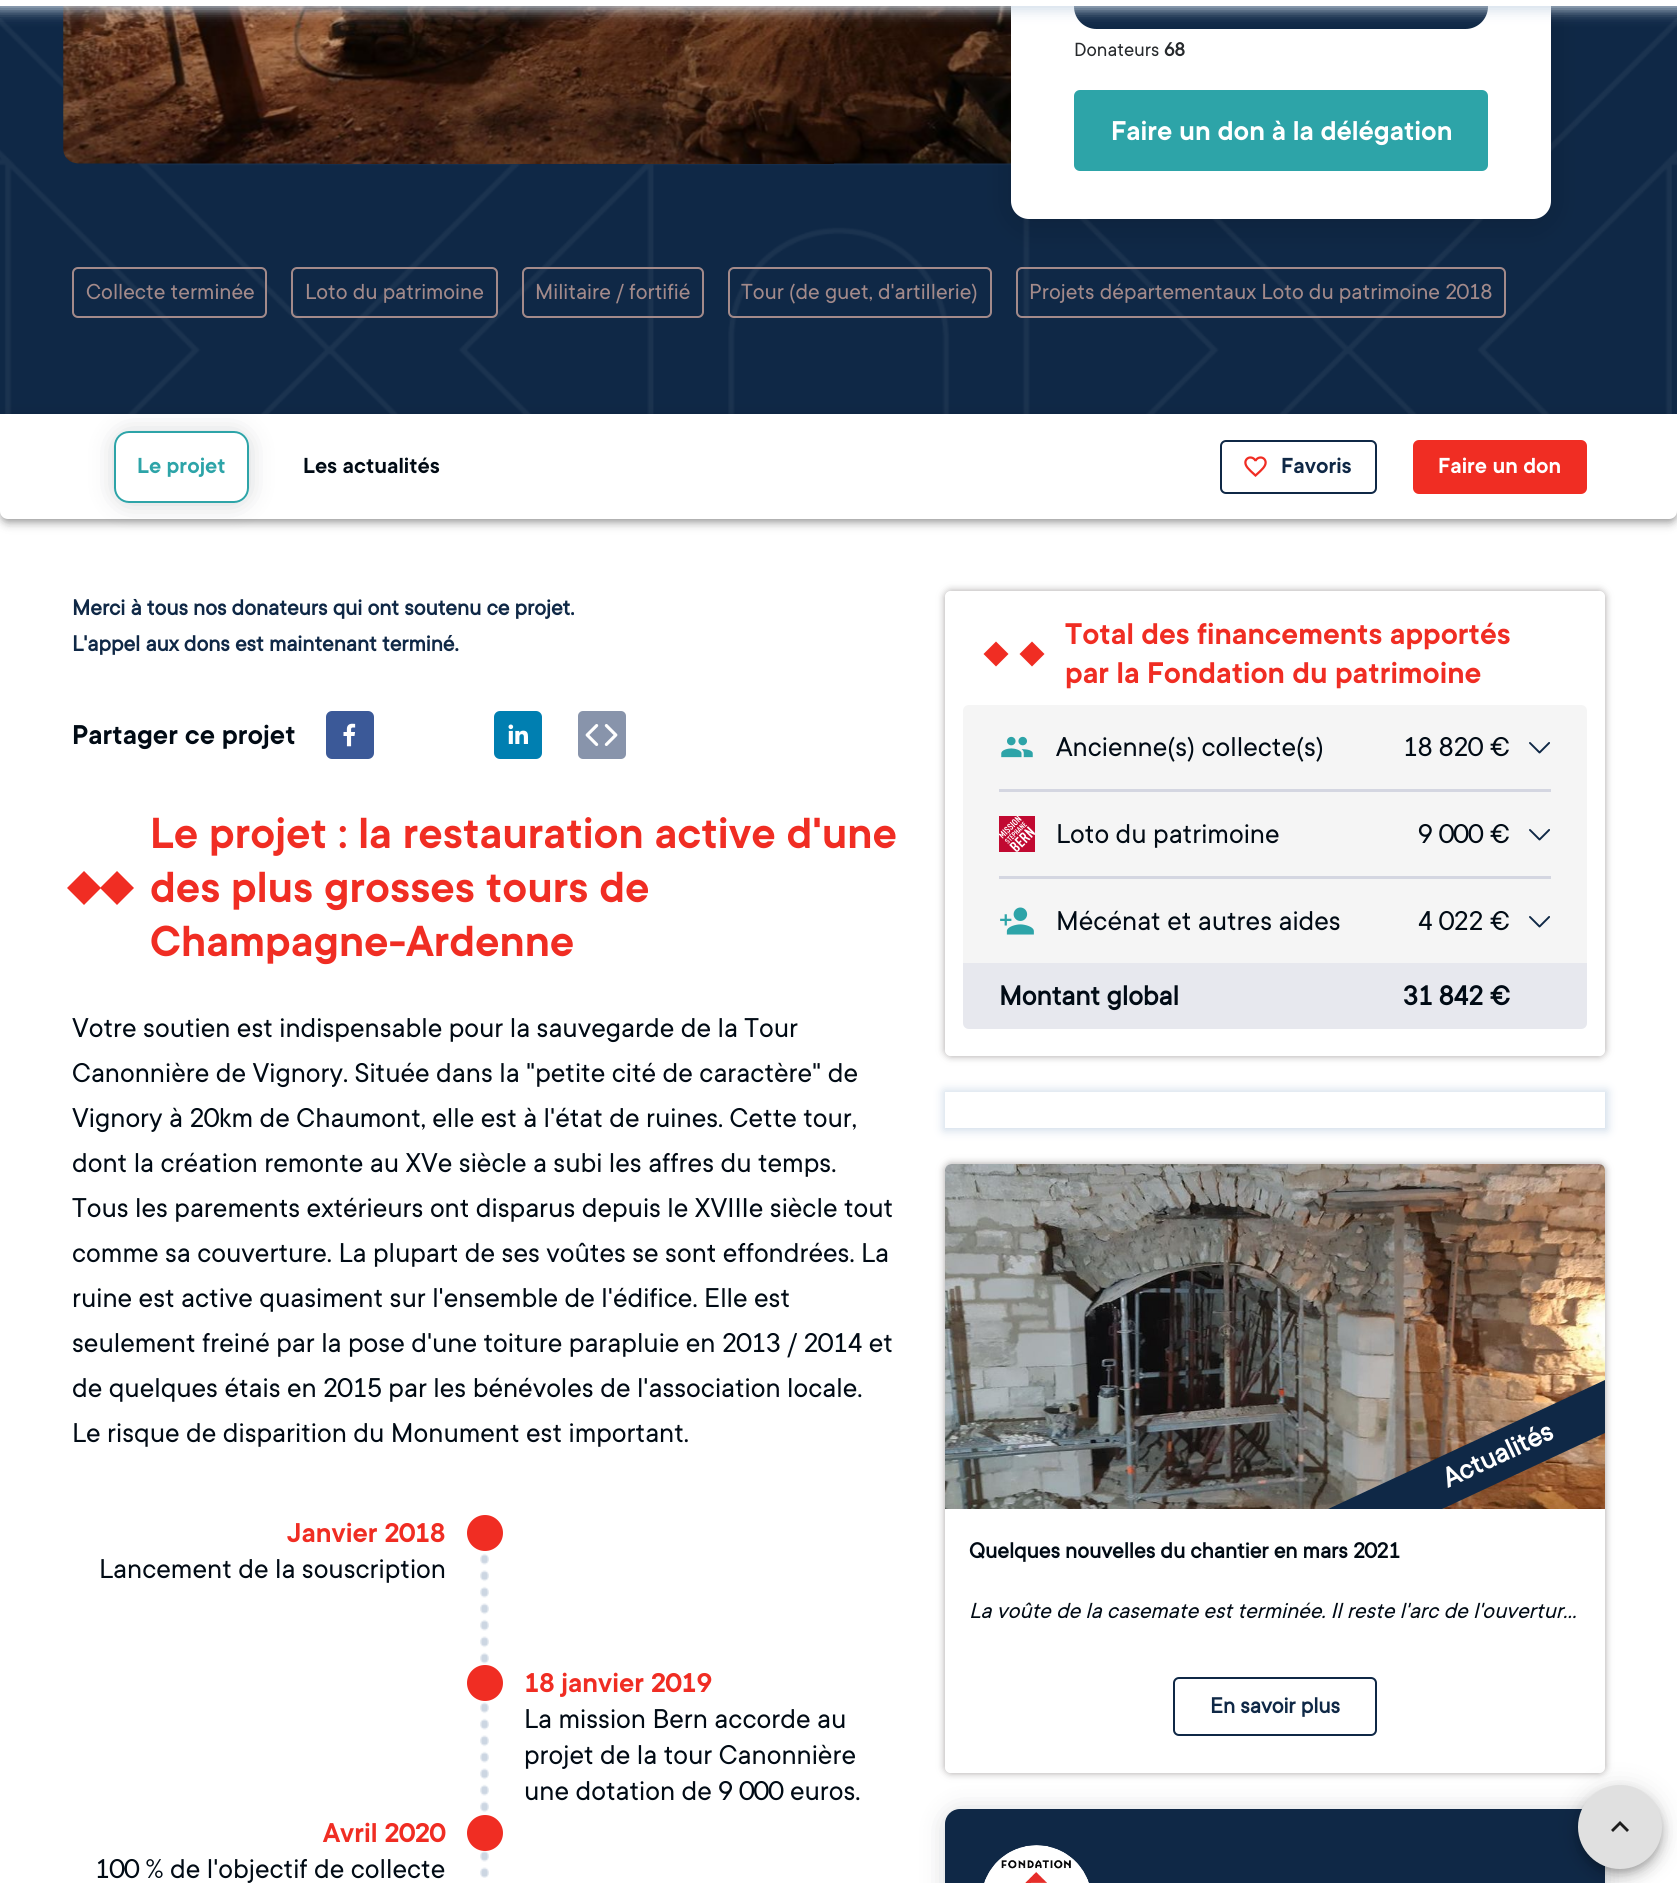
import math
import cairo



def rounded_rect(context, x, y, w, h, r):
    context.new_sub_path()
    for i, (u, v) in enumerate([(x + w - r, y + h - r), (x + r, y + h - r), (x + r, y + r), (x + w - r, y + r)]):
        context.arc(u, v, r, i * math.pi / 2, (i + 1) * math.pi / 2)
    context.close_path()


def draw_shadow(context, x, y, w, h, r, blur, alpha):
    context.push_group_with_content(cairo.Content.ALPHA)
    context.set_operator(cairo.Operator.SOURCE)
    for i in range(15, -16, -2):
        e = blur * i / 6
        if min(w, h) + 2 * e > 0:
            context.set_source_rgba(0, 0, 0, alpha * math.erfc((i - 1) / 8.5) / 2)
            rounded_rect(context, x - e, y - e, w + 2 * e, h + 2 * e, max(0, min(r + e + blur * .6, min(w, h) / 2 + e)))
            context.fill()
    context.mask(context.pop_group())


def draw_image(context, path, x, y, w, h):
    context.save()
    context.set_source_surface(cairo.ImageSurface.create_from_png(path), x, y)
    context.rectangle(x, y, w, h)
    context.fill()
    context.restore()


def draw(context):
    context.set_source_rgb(1, 1, 1)
    context.paint()
    context.set_source_rgb(15 / 255, 40 / 255, 70 / 255)
    context.rectangle(0, 6, 1677, 408)
    context.fill()
    draw_image(context, "images/1.png", 0, 18, 1677, 396)
    draw_image(context, "images/2.png", 63, 6, 948, 158)
    rounded_rect(context, 729, 268, 262, 49, 5)
    context.set_source_rgb(163 / 255, 138 / 255, 138 / 255)
    context.stroke()
    rounded_rect(context, 1017, 268, 488, 49, 5)
    context.stroke()
    context.set_source_rgb(0, 0, 0)
    draw_shadow(context, 1011, -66, 540, 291, 18, 16, 0.16)
    context.set_source_rgb(1, 1, 1)
    rounded_rect(context, 1011, -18, 540, 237, 18)
    context.fill()
    context.set_source_rgb(15 / 255, 40 / 255, 70 / 255)
    rounded_rect(context, 1074, -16, 414, 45, 22.5)
    context.fill()
    context.set_source_rgb(204 / 255, 217 / 255, 231 / 255)
    draw_shadow(context, -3, -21, 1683, 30, 0, 7, 1)
    context.set_source_rgb(1, 1, 1)
    context.rectangle(0, 0, 1677, 6)
    context.fill()
    context.set_source_rgb(45 / 255, 164 / 255, 168 / 255)
    rounded_rect(context, 1075, 91, 412, 79, 5)
    context.fill_preserve()
    context.stroke()
    rounded_rect(context, 73, 268, 193, 49, 5)
    context.set_source_rgb(163 / 255, 138 / 255, 138 / 255)
    context.stroke()
    rounded_rect(context, 292, 268, 205, 49, 5)
    context.stroke()
    rounded_rect(context, 523, 268, 180, 49, 5)
    context.stroke()
    context.set_source_rgb(0, 0, 0)
    draw_shadow(context, 2, 419, 1674, 102, 6, 3, 0.2)
    draw_shadow(context, 0, 420, 1677, 105, 8, 4, 0.14)
    draw_shadow(context, 0, 416, 1677, 105, 8, 7.5, 0.12)
    context.set_source_rgb(1, 1, 1)
    context.new_path()
    context.move_to(0, 414)
    context.line_to(1677, 414)
    context.line_to(1677, 511)
    context.curve_to(1677, 515.5, 1673.5, 519, 1669, 519)
    context.line_to(8, 519)
    context.curve_to(3.5, 519, 0, 515.5, 0, 511)
    context.close_path()
    context.fill()
    context.save()
    context.set_fill_rule(cairo.FillRule.EVEN_ODD)
    context.new_path()
    context.move_to(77, 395)
    context.line_to(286, 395)
    context.line_to(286, 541)
    context.line_to(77, 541)
    context.close_path()
    context.move_to(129, 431)
    context.line_to(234, 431)
    context.curve_to(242.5, 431, 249, 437.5, 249, 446)
    context.line_to(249, 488)
    context.curve_to(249, 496.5, 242.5, 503, 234, 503)
    context.line_to(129, 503)
    context.curve_to(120.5, 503, 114, 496.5, 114, 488)
    context.line_to(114, 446)
    context.curve_to(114, 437.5, 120.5, 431, 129, 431)
    context.close_path()
    context.clip()
    context.set_source_rgb(34 / 255, 42 / 255, 50 / 255)
    draw_shadow(context, 114, 432, 135, 72, 15, 12, 0.2)
    context.restore()
    rounded_rect(context, 115, 432, 133, 70, 14)
    context.set_source_rgb(45 / 255, 164 / 255, 168 / 255)
    context.stroke()
    rounded_rect(context, 1221, 441, 155, 52, 5)
    context.set_source_rgb(15 / 255, 40 / 255, 70 / 255)
    context.stroke()
    draw_image(context, "images/3.png", 1244, 456, 23, 21)
    context.set_source_rgb(240 / 255, 45 / 255, 35 / 255)
    rounded_rect(context, 1414, 441, 172, 52, 5)
    context.fill_preserve()
    context.stroke()
    draw_image(context, "images/4.png", 326, 711, 48, 48)
    draw_image(context, "images/5.png", 494, 711, 48, 48)
    draw_image(context, "images/6.png", 578, 711, 48, 48)
    context.new_path()
    context.move_to(84, 871)
    context.line_to(101, 888)
    context.line_to(84, 905)
    context.line_to(67, 888)
    context.close_path()
    context.fill()
    context.new_path()
    context.move_to(117, 871)
    context.line_to(134, 888)
    context.line_to(117, 905)
    context.line_to(100, 888)
    context.close_path()
    context.fill()
    draw_image(context, "images/7.png", 480, 1550, 9, 328)
    context.arc(485, 1533, 18, 0, 2 * math.pi)
    context.fill()
    context.arc(485, 1683, 18, 0, 2 * math.pi)
    context.fill()
    context.arc(485, 1833, 18, 0, 2 * math.pi)
    context.fill()
    context.save()
    context.set_fill_rule(cairo.FillRule.EVEN_ODD)
    context.new_path()
    context.move_to(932, 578)
    context.line_to(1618, 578)
    context.line_to(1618, 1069)
    context.line_to(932, 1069)
    context.close_path()
    context.move_to(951, 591)
    context.line_to(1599, 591)
    context.curve_to(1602.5, 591, 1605, 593.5, 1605, 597)
    context.line_to(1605, 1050)
    context.curve_to(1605, 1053.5, 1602.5, 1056, 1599, 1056)
    context.line_to(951, 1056)
    context.curve_to(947.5, 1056, 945, 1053.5, 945, 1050)
    context.line_to(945, 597)
    context.curve_to(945, 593.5, 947.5, 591, 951, 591)
    context.close_path()
    context.clip()
    context.set_source_rgb(80 / 255, 73 / 255, 73 / 255)
    draw_shadow(context, 945, 591, 660, 465, 6, 4, 0.5)
    context.restore()
    context.new_path()
    context.move_to(996, 641.5)
    context.line_to(1008.5, 654)
    context.line_to(996, 666.5)
    context.line_to(983.5, 654)
    context.close_path()
    context.move_to(1032, 641.5)
    context.line_to(1044.5, 654)
    context.line_to(1032, 666.5)
    context.line_to(1019.5, 654)
    context.close_path()
    context.fill()
    context.set_source_rgb(245 / 255, 245 / 255, 245 / 255)
    context.new_path()
    context.move_to(969, 705)
    context.line_to(1581, 705)
    context.curve_to(1584.5, 705, 1587, 707.5, 1587, 711)
    context.line_to(1587, 963)
    context.line_to(963, 963)
    context.line_to(963, 711)
    context.curve_to(963, 707.5, 965.5, 705, 969, 705)
    context.close_path()
    context.fill()
    draw_image(context, "images/8.png", 1001, 736, 32, 22)
    draw_image(context, "images/9.png", 1529, 742, 21, 12)
    context.set_source_rgb(212 / 255, 214 / 255, 225 / 255)
    context.rectangle(999, 789, 552, 3)
    context.fill()
    draw_image(context, "images/10.png", 999, 816, 36, 36)
    draw_image(context, "images/9.png", 1529, 829, 21, 12)
    context.rectangle(999, 876, 552, 3)
    context.fill()
    draw_image(context, "images/11.png", 1000, 907, 34, 28)
    draw_image(context, "images/9.png", 1529, 916, 21, 12)
    context.set_source_rgb(231 / 255, 232 / 255, 238 / 255)
    context.new_path()
    context.move_to(963, 963)
    context.line_to(1587, 963)
    context.line_to(1587, 1023)
    context.curve_to(1587, 1026.5, 1584.5, 1029, 1581, 1029)
    context.line_to(969, 1029)
    context.curve_to(965.5, 1029, 963, 1026.5, 963, 1023)
    context.close_path()
    context.fill()
    context.save()
    context.set_fill_rule(cairo.FillRule.EVEN_ODD)
    context.new_path()
    context.move_to(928, 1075)
    context.line_to(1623, 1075)
    context.line_to(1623, 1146)
    context.line_to(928, 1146)
    context.close_path()
    context.move_to(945, 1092)
    context.line_to(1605, 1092)
    context.line_to(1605, 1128)
    context.line_to(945, 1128)
    context.close_path()
    context.clip()
    context.set_source_rgb(204 / 255, 217 / 255, 231 / 255)
    draw_shadow(context, 944, 1091, 663, 39, 0, 5, 1)
    context.restore()
    context.save()
    context.set_fill_rule(cairo.FillRule.EVEN_ODD)
    context.new_path()
    context.move_to(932, 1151)
    context.line_to(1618, 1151)
    context.line_to(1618, 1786)
    context.line_to(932, 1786)
    context.close_path()
    context.move_to(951, 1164)
    context.line_to(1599, 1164)
    context.curve_to(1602.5, 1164, 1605, 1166.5, 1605, 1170)
    context.line_to(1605, 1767)
    context.curve_to(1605, 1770.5, 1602.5, 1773, 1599, 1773)
    context.line_to(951, 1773)
    context.curve_to(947.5, 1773, 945, 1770.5, 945, 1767)
    context.line_to(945, 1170)
    context.curve_to(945, 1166.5, 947.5, 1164, 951, 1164)
    context.close_path()
    context.clip()
    context.set_source_rgb(80 / 255, 73 / 255, 73 / 255)
    draw_shadow(context, 945, 1164, 660, 609, 6, 4, 0.5)
    context.restore()
    draw_image(context, "images/12.png", 945, 1164, 660, 345)
    context.set_source_rgb(15 / 255, 40 / 255, 70 / 255)
    context.new_path()
    context.move_to(1442, 1509)
    context.line_to(1328, 1509)
    context.line_to(1605, 1380)
    context.line_to(1605, 1433)
    context.close_path()
    context.fill()
    rounded_rect(context, 1174, 1678, 202, 57, 5)
    context.stroke()
    context.set_source_rgb(34 / 255, 42 / 255, 50 / 255)
    draw_shadow(context, 945, 1811, 660, 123, 15, 12, 0.2)
    context.set_source_rgb(15 / 255, 40 / 255, 70 / 255)
    rounded_rect(context, 945, 1809, 660, 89, 15)
    context.fill()
    draw_image(context, "images/13.png", 984, 1845, 105, 38)
    context.set_source_rgb(0, 0, 0)
    draw_shadow(context, 1578, 1787, 84, 84, 42, 13.5, 0.12)
    draw_shadow(context, 1578, 1794, 84, 84, 42, 7.5, 0.14)
    draw_shadow(context, 1580, 1791, 81, 81, 40.5, 4, 0.2)
    context.set_source_rgb(224 / 255, 224 / 255, 224 / 255)
    context.arc(1620, 1827, 42, 0, 2 * math.pi)
    context.fill()
    context.set_source_rgb(29 / 255, 29 / 255, 29 / 255)
    context.new_path()
    context.move_to(1613, 1832)
    context.line_to(1620, 1825)
    context.line_to(1627, 1832)
    context.line_to(1629, 1830)
    context.line_to(1620, 1821)
    context.line_to(1611, 1830)
    context.close_path()
    context.fill()
    context.select_font_face("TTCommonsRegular")
    context.set_font_size(21)
    context.set_source_rgb(39 / 255, 42 / 255, 45 / 255)
    context.move_to(1074, 56)
    context.show_text("Donateurs")
    context.select_font_face("TTCommonsRegular", cairo.FontSlant.NORMAL, cairo.FontWeight.BOLD)
    context.move_to(1164, 56)
    context.show_text("68")
    context.select_font_face("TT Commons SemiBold")
    context.set_font_size(30)
    context.set_source_rgb(1, 1, 1)
    context.move_to(1111, 140)
    context.show_text("Faire un don à la délégation")
    context.select_font_face("TTCommonsRegular")
    context.set_font_size(24)
    context.set_source_rgb(163 / 255, 138 / 255, 138 / 255)
    context.move_to(86, 299)
    context.show_text("Collecte terminée")
    context.move_to(305, 299)
    context.show_text("Loto du patrimoine")
    context.move_to(535, 299)
    context.show_text("Militaire / fortifié")
    context.move_to(741, 299)
    context.show_text("Tour (de guet, d'artillerie)")
    context.select_font_face("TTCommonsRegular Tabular")
    context.move_to(1029, 299)
    context.show_text("Projets départementaux Loto du patrimoine 2018")
    context.select_font_face("TT Commons SemiBold")
    context.set_source_rgb(45 / 255, 164 / 255, 168 / 255)
    context.move_to(137, 473)
    context.show_text("Le projet")
    context.set_source_rgb(1 / 255, 11 / 255, 21 / 255)
    context.move_to(303, 473)
    context.show_text("Les actualités")
    context.set_source_rgb(15 / 255, 40 / 255, 70 / 255)
    context.move_to(1281, 473)
    context.show_text("Favoris")
    context.set_source_rgb(1, 1, 1)
    context.move_to(1438, 473)
    context.show_text("Faire un don")
    context.select_font_face("TTCommonsRegular", cairo.FontSlant.NORMAL, cairo.FontWeight.BOLD)
    context.set_source_rgb(15 / 255, 40 / 255, 70 / 255)
    context.move_to(72, 615)
    context.show_text("Merci à tous nos donateurs qui ont soutenu ce projet.")
    context.move_to(72, 651)
    context.show_text("L'appel aux dons est maintenant terminé.")
    context.select_font_face("TT Commons SemiBold")
    context.set_font_size(30)
    context.set_source_rgb(1 / 255, 11 / 255, 21 / 255)
    context.move_to(72, 744)
    context.show_text("Partager ce projet")
    context.set_font_size(48)
    context.set_source_rgb(240 / 255, 45 / 255, 35 / 255)
    context.move_to(150, 848)
    context.show_text("Le projet : la restauration active d'une")
    context.move_to(150, 902)
    context.show_text("des plus grosses tours de")
    context.move_to(150, 956)
    context.show_text("Champagne-Ardenne")
    context.select_font_face("TTCommonsRegular")
    context.set_font_size(30)
    context.set_source_rgb(1 / 255, 11 / 255, 21 / 255)
    context.move_to(72, 1037)
    context.show_text("Votre soutien est indispensable pour la sauvegarde de la Tour")
    context.move_to(72, 1082)
    context.show_text("Canonnière de Vignory. Située dans la \"petite cité de caractère\" de")
    context.select_font_face("TTCommonsRegular Tabular")
    context.move_to(72, 1127)
    context.show_text("Vignory à 20km de Chaumont, elle est à l'état de ruines. Cette tour,")
    context.select_font_face("TTCommonsRegular")
    context.move_to(72, 1172)
    context.show_text("dont la création remonte au XVe siècle a subi les affres du temps.")
    context.move_to(72, 1217)
    context.show_text("Tous les parements extérieurs ont disparus depuis le XVIIIe siècle tout")
    context.move_to(72, 1262)
    context.show_text("comme sa couverture. La plupart de ses voûtes se sont effondrées. La")
    context.move_to(72, 1307)
    context.show_text("ruine est active quasiment sur l'ensemble de l'édifice. Elle est")
    context.select_font_face("TTCommonsRegular Tabular")
    context.move_to(72, 1352)
    context.show_text("seulement freiné par la pose d'une toiture parapluie en 2013 / 2014 et")
    context.move_to(72, 1397)
    context.show_text("de quelques étais en 2015 par les bénévoles de l'association locale.")
    context.select_font_face("TTCommonsRegular")
    context.move_to(72, 1442)
    context.show_text("Le risque de disparition du Monument est important.")
    context.select_font_face("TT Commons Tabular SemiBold")
    context.set_source_rgb(240 / 255, 45 / 255, 35 / 255)
    context.move_to(287, 1542)
    context.show_text("Janvier 2018")
    context.select_font_face("TTCommonsRegular")
    context.set_source_rgb(1 / 255, 11 / 255, 21 / 255)
    context.move_to(99, 1578)
    context.show_text("Lancement de la souscription")
    context.select_font_face("TT Commons Tabular SemiBold")
    context.set_source_rgb(240 / 255, 45 / 255, 35 / 255)
    context.move_to(524, 1692)
    context.show_text("18 janvier 2019")
    context.select_font_face("TTCommonsRegular")
    context.set_source_rgb(1 / 255, 11 / 255, 21 / 255)
    context.move_to(524, 1728)
    context.show_text("La mission Bern accorde au")
    context.move_to(524, 1764)
    context.show_text("projet de la tour Canonnière")
    context.select_font_face("TTCommonsRegular Tabular")
    context.move_to(524, 1800)
    context.show_text("une dotation de 9 000 euros.")
    context.select_font_face("TT Commons Tabular SemiBold")
    context.set_source_rgb(240 / 255, 45 / 255, 35 / 255)
    context.move_to(323, 1842)
    context.show_text("Avril 2020")
    context.select_font_face("TTCommonsRegular Tabular")
    context.set_source_rgb(1 / 255, 11 / 255, 21 / 255)
    context.move_to(95, 1878)
    context.show_text("100 % de l'objectif de collecte")
    context.select_font_face("TT Commons SemiBold")
    context.set_font_size(33)
    context.set_source_rgb(240 / 255, 45 / 255, 35 / 255)
    context.move_to(1065, 644)
    context.show_text("Total des financements apportés")
    context.move_to(1065, 683)
    context.show_text("par la Fondation du patrimoine")
    context.select_font_face("TTCommonsRegular")
    context.set_font_size(30)
    context.set_source_rgb(1 / 255, 11 / 255, 21 / 255)
    context.move_to(1056, 756)
    context.show_text("Ancienne(s) collecte(s)")
    context.select_font_face("TTCommonsRegular Tabular")
    context.move_to(1403, 756)
    context.show_text("18 820")
    context.select_font_face("TTCommonsRegular")
    context.move_to(1490, 756)
    context.show_text("€")
    context.move_to(1056, 843)
    context.show_text("Loto du patrimoine")
    context.select_font_face("TTCommonsRegular Tabular")
    context.move_to(1418, 843)
    context.show_text("9 000")
    context.select_font_face("TTCommonsRegular")
    context.move_to(1490, 843)
    context.show_text("€")
    context.move_to(1056, 930)
    context.show_text("Mécénat et autres aides")
    context.select_font_face("TTCommonsRegular Tabular")
    context.move_to(1418, 930)
    context.show_text("4 022")
    context.select_font_face("TTCommonsRegular")
    context.move_to(1490, 930)
    context.show_text("€")
    context.select_font_face("TTCommonsRegular", cairo.FontSlant.NORMAL, cairo.FontWeight.BOLD)
    context.move_to(999, 1005)
    context.show_text("Montant global")
    context.select_font_face("TTCommonsRegular Tabular", cairo.FontSlant.NORMAL, cairo.FontWeight.BOLD)
    context.move_to(1403, 1005)
    context.show_text("31 842")
    context.select_font_face("TTCommonsRegular", cairo.FontSlant.NORMAL, cairo.FontWeight.BOLD)
    context.move_to(1490, 1005)
    context.show_text("€")
    context.set_source_rgb(1, 1, 1)
    context.save()
    context.translate(1448, 1488)
    context.rotate(-25 * math.pi / 180)
    context.move_to(0, 0)
    context.show_text("Actualités")
    context.restore()
    context.select_font_face("TTCommonsRegular Tabular", cairo.FontSlant.NORMAL, cairo.FontWeight.BOLD)
    context.set_font_size(24)
    context.set_source_rgb(1 / 255, 11 / 255, 21 / 255)
    context.move_to(969, 1558)
    context.show_text("Quelques nouvelles du chantier en mars 2021")
    context.select_font_face("TTCommonsRegular", cairo.FontSlant.ITALIC)
    context.move_to(969, 1618)
    context.show_text("La voûte de la casemate est terminée. Il reste l'arc de l'ouvertur…")
    context.select_font_face("TTCommonsRegular", cairo.FontSlant.NORMAL, cairo.FontWeight.BOLD)
    context.set_source_rgb(15 / 255, 40 / 255, 70 / 255)
    context.move_to(1210, 1713)
    context.show_text("En savoir plus")


surface = cairo.ImageSurface(cairo.Format.RGB24, 1677, 1883)
context = cairo.Context(surface)
options = cairo.FontOptions()
options.set_hint_metrics(cairo.HintMetrics.OFF)
options.set_hint_style(cairo.HintStyle.NONE)
context.set_font_options(options)
context.set_miter_limit(4)
draw(context)
surface.write_to_png("out.png")
